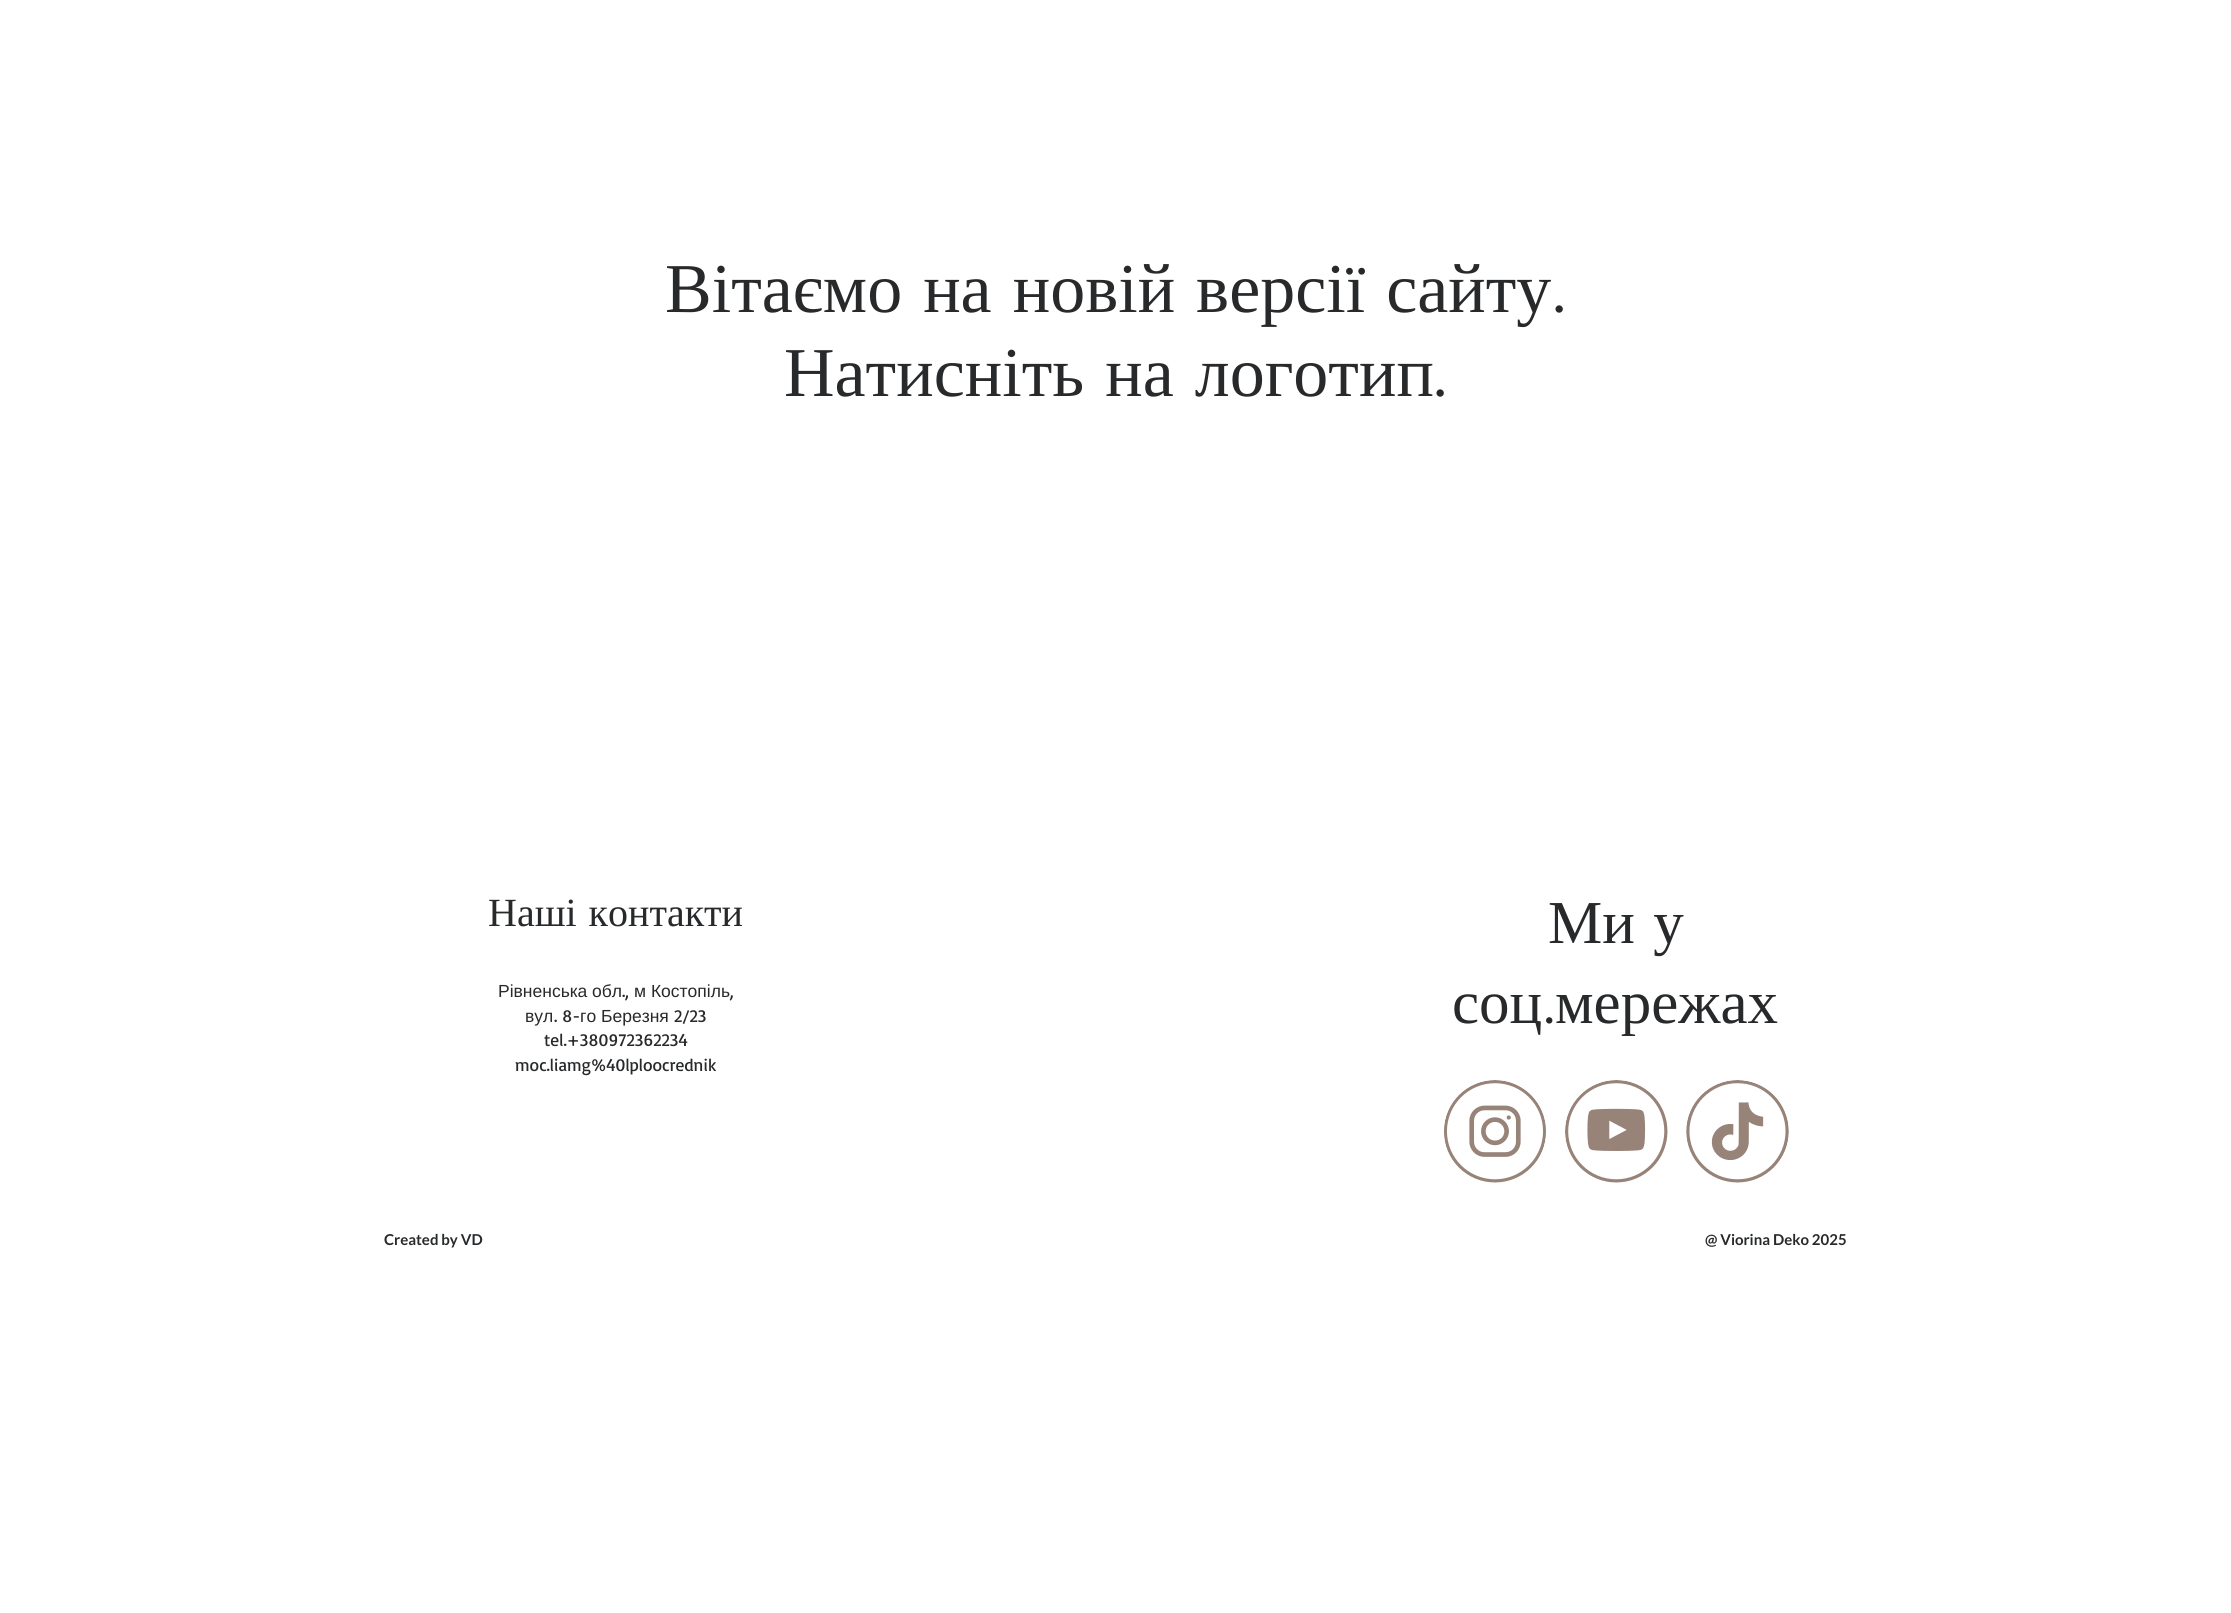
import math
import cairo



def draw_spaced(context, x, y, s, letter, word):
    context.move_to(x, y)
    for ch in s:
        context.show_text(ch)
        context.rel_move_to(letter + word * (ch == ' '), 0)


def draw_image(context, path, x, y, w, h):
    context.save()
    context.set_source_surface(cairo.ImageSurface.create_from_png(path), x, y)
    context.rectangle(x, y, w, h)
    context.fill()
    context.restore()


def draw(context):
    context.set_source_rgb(1, 1, 1)
    context.paint()
    draw_image(context, "images/1.png", 1444, 1080, 102, 103)
    draw_image(context, "images/2.png", 1565, 1080, 103, 103)
    draw_image(context, "images/3.png", 1686, 1080, 103, 103)
    context.select_font_face("Liberation Serif")
    context.set_font_size(70)
    context.set_source_rgb(39 / 255, 41 / 255, 43 / 255)
    draw_spaced(context, 665, 312, "Вітаємо на новій версії сайту", 0, 3.5)
    context.select_font_face("Marcellus")
    context.move_to(1552, 312)
    context.show_text(".")
    context.select_font_face("Liberation Serif")
    draw_spaced(context, 784, 396, "Натисніть на логотип", 0, 3.5)
    context.select_font_face("Marcellus")
    context.move_to(1433, 396)
    context.show_text(".")
    context.select_font_face("Liberation Serif")
    context.set_font_size(40)
    draw_spaced(context, 488, 926, "Наші контакти", 0, 2)
    context.select_font_face("Liberation Sans")
    context.set_font_size(17.5)
    context.move_to(498, 997)
    context.show_text("Рівненська обл")
    context.select_font_face("Basic")
    context.move_to(622, 997)
    context.show_text(".,")
    context.select_font_face("Liberation Sans")
    context.move_to(634, 997)
    context.show_text("м Костопіль")
    context.select_font_face("Basic")
    context.move_to(730, 997)
    context.show_text(",")
    context.select_font_face("Liberation Sans")
    context.move_to(525, 1022)
    context.show_text("вул")
    context.select_font_face("Basic")
    context.move_to(554, 1022)
    context.show_text(". 8-")
    context.select_font_face("Liberation Sans")
    context.move_to(580, 1022)
    context.show_text("го Березня")
    context.select_font_face("Basic")
    context.move_to(674, 1022)
    context.show_text("2/23")
    context.move_to(544, 1046)
    context.show_text("tel.+380972362234")
    context.move_to(515, 1071)
    context.show_text("moc.liamg%40lploocrednik")
    context.select_font_face("Liberation Serif")
    context.set_font_size(61)
    draw_spaced(context, 1548, 943, "Ми у", 0, 3)
    context.move_to(1452, 1023)
    context.show_text("соц")
    context.select_font_face("Marcellus")
    context.move_to(1543, 1023)
    context.show_text(".")
    context.select_font_face("Liberation Serif")
    context.move_to(1555, 1023)
    context.show_text("мережах")
    context.select_font_face("Lato", cairo.FontSlant.NORMAL, cairo.FontWeight.BOLD)
    context.set_font_size(15)
    context.move_to(384, 1245)
    context.show_text("Created by VD")
    context.move_to(1705, 1245)
    context.show_text("@ Viorina Deko 2025")


surface = cairo.ImageSurface(cairo.Format.RGB24, 2231, 1613)
context = cairo.Context(surface)
options = cairo.FontOptions()
options.set_hint_metrics(cairo.HintMetrics.OFF)
options.set_hint_style(cairo.HintStyle.NONE)
context.set_font_options(options)
context.set_miter_limit(4)
draw(context)
surface.write_to_png("out.png")
